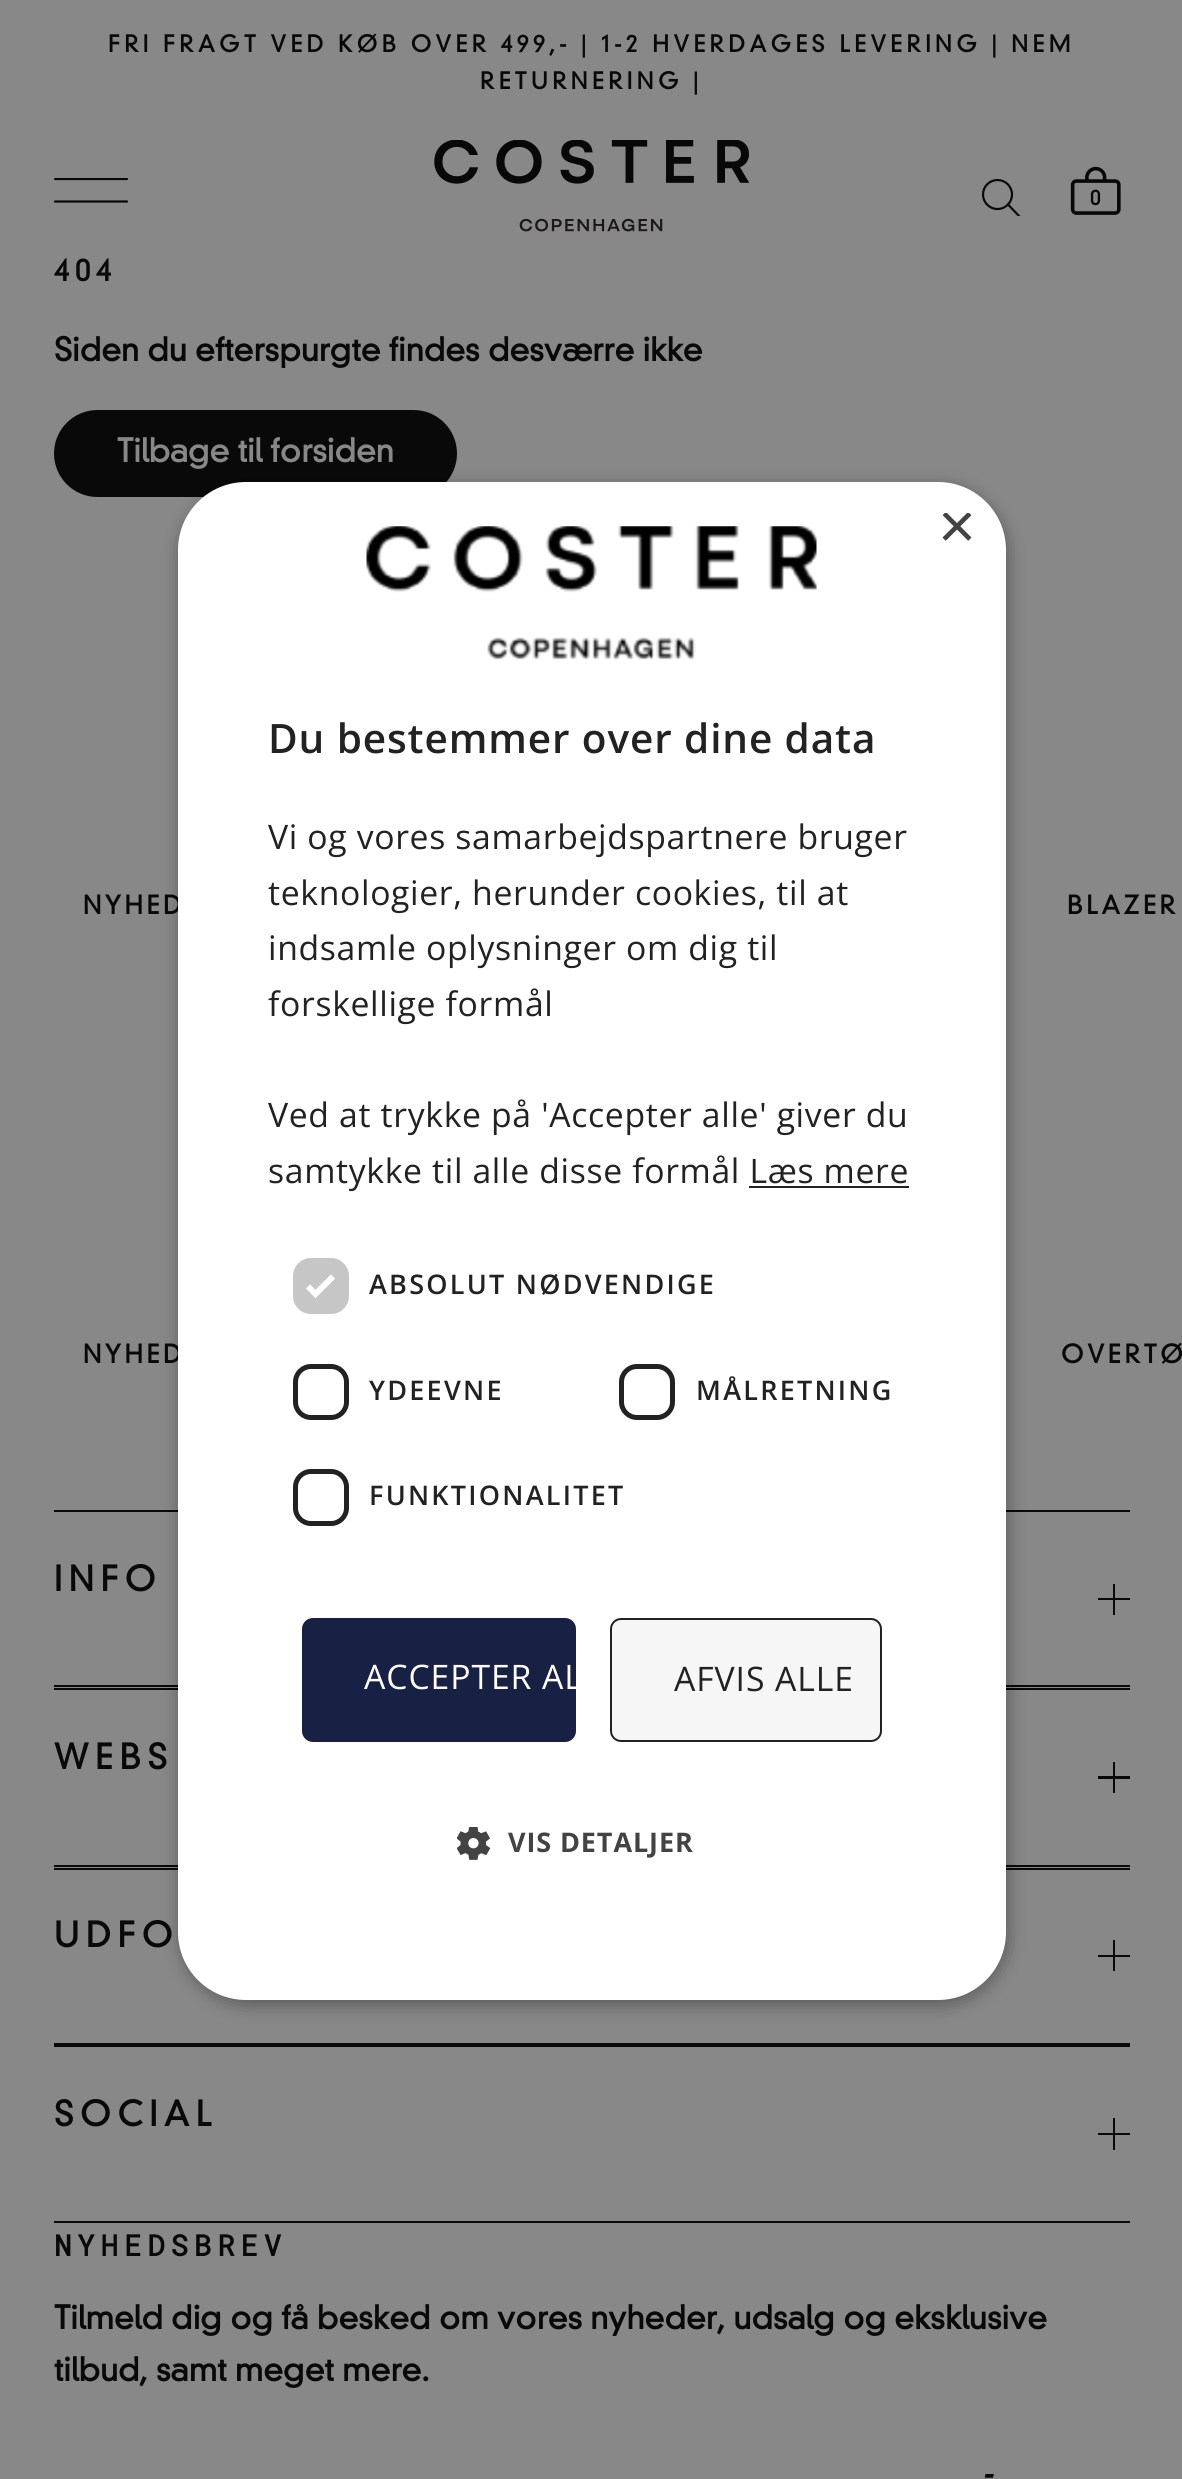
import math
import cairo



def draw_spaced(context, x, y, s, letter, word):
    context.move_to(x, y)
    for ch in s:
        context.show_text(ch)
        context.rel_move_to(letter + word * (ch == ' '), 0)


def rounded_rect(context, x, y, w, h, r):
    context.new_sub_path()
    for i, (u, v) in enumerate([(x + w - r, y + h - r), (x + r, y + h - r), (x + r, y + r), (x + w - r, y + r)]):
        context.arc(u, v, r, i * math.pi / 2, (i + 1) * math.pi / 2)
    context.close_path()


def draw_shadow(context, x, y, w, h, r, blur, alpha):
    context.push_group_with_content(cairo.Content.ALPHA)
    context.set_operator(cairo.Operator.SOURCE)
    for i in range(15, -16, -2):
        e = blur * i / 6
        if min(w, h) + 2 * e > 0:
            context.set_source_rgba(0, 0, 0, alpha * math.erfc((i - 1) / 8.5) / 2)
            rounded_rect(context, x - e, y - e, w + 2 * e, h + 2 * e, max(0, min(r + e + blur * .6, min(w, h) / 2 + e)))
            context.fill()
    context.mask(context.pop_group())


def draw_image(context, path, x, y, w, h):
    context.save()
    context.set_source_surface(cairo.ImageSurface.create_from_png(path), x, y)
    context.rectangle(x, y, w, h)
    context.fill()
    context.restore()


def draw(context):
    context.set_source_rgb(136 / 255, 136 / 255, 136 / 255)
    context.paint()
    context.save()
    context.rectangle(54, 178, 74, 25)
    context.clip()
    context.new_path()
    context.move_to(55, 179)
    context.line_to(127, 179)
    context.set_source_rgb(9 / 255, 9 / 255, 9 / 255)
    context.set_line_width(2.2)
    context.set_line_cap(cairo.LineCap.ROUND)
    context.stroke()
    context.restore()
    context.new_path()
    context.move_to(55, 201.5)
    context.line_to(127, 201.5)
    context.set_source_rgb(9 / 255, 9 / 255, 9 / 255)
    context.set_line_width(2.2)
    context.set_line_cap(cairo.LineCap.ROUND)
    context.stroke()
    draw_image(context, "images/1.png", 434, 140, 315, 92)
    context.save()
    context.rectangle(981, 178, 41, 38)
    context.clip()
    context.new_path()
    context.move_to(1019, 216)
    context.line_to(1008, 204.5)
    context.set_line_cap(cairo.LineCap.SQUARE)
    context.stroke()
    context.restore()
    context.arc(997.5, 194.5, 14.5, 0, 2 * math.pi)
    context.set_line_cap(cairo.LineCap.BUTT)
    context.stroke()
    draw_image(context, "images/2.png", 1070, 166, 51, 49)
    rounded_rect(context, 54, 410, 403, 87, 43.5)
    context.fill()
    context.rectangle(54, 1510, 1076, 2)
    context.fill()
    context.rectangle(54, 1685, 1076, 2)
    context.fill()
    context.rectangle(1113, 1584, 2, 31)
    context.fill()
    context.rectangle(1098, 1598, 32, 2)
    context.fill()
    context.rectangle(54, 1688, 1076, 2)
    context.fill()
    context.rectangle(54, 1865, 1076, 2)
    context.fill()
    context.rectangle(1113, 1762, 2, 31)
    context.fill()
    context.rectangle(1098, 1776, 32, 3)
    context.fill()
    context.rectangle(54, 1868, 1076, 2)
    context.fill()
    context.rectangle(54, 2043, 1076, 4)
    context.fill()
    context.rectangle(1113, 1940, 2, 31)
    context.fill()
    context.rectangle(1098, 1955, 32, 2)
    context.fill()
    context.rectangle(54, 2221, 1076, 2)
    context.fill()
    context.rectangle(1113, 2118, 2, 32)
    context.fill()
    context.rectangle(1098, 2133, 32, 2)
    context.fill()
    context.set_source_rgb(0, 0, 0)
    draw_shadow(context, 180, 486, 828, 1519, 68, 9, 0.35)
    context.select_font_face("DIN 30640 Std", cairo.FontSlant.NORMAL, cairo.FontWeight.BOLD)
    context.set_font_size(22.5)
    context.set_source_rgb(9 / 255, 9 / 255, 9 / 255)
    draw_spaced(context, 108, 52, "FRI FRAGT VED KØB OVER 499,- | 1-2 HVERDAGES LEVERING | NEM", 4.5, 0)
    draw_spaced(context, 480, 89, "RETURNERING |", 4.5, 0)
    context.set_font_size(20)
    context.move_to(1090, 205)
    context.show_text("0")
    context.set_font_size(29.25)
    draw_spaced(context, 54, 281, "404", 5.75, 0)
    context.set_font_size(31.5)
    context.move_to(54, 361)
    context.show_text("Siden du efterspurgte findes desværre ikke")
    context.set_source_rgb(136 / 255, 136 / 255, 136 / 255)
    context.move_to(117, 462)
    context.show_text("Tilbage til forsiden")
    context.set_font_size(24.75)
    context.set_source_rgb(9 / 255, 9 / 255, 9 / 255)
    draw_spaced(context, 83, 914, "NYHED", 3.75, 0)
    draw_spaced(context, 1067, 914, "BLAZER", 3.75, 0)
    draw_spaced(context, 83, 1363, "NYHED", 3.75, 0)
    draw_spaced(context, 1061, 1363, "OVERTØ", 3.75, 0)
    context.set_font_size(33.75)
    draw_spaced(context, 54, 1591, "INFO", 6.75, 0)
    draw_spaced(context, 54, 1769, "WEBS", 6.75, 0)
    draw_spaced(context, 54, 1947, "UDFO", 6.75, 0)
    draw_spaced(context, 54, 2126, "SOCIAL", 6.75, 0)
    context.select_font_face("Roboto Mono", cairo.FontSlant.NORMAL, cairo.FontWeight.BOLD)
    context.set_font_size(29.25)
    draw_spaced(context, 54, 2256, "NYHEDSBREV", 5.75, 0)
    context.select_font_face("DIN 30640 Std", cairo.FontSlant.NORMAL, cairo.FontWeight.BOLD)
    context.set_font_size(31.5)
    context.move_to(54, 2329)
    context.show_text("Tilmeld dig og få besked om vores nyheder, udsalg og eksklusive")
    context.move_to(54, 2381)
    context.show_text("tilbud, samt meget mere.")
    context.select_font_face("DIN 30640 Std", cairo.FontSlant.ITALIC, cairo.FontWeight.BOLD)
    context.move_to(982, 2485)
    context.show_text("-")
    context.set_source_rgb(1, 1, 1)
    rounded_rect(context, 178, 482, 828, 1518, 68)
    context.fill()
    draw_image(context, "images/3.png", 366, 526, 451, 134)
    context.save()
    context.rectangle(938, 513, 34, 34)
    context.clip()
    context.select_font_face("Liberation Sans")
    context.set_font_size(65)
    context.set_source_rgb(67 / 255, 67 / 255, 67 / 255)
    context.move_to(938, 548)
    context.show_text("×")
    context.restore()
    context.select_font_face("Open Sans SemiBold")
    context.set_font_size(40.5)
    context.set_source_rgb(34 / 255, 34 / 255, 34 / 255)
    draw_spaced(context, 268, 753, "Du bestemmer over dine data", 0.9, 0)
    context.select_font_face("Open Sans")
    context.set_font_size(33.75)
    draw_spaced(context, 268, 849, "Vi og vores samarbejdspartnere bruger", 0.65, 0)
    draw_spaced(context, 268, 905, "teknologier, herunder cookies, til at", 0.65, 0)
    draw_spaced(context, 268, 960, "indsamle oplysninger om dig til", 0.65, 0)
    draw_spaced(context, 268, 1016, "forskellige formål", 0.65, 0)
    draw_spaced(context, 268, 1127, "Ved at trykke på 'Accepter alle' giver du", 0.65, 0)
    draw_spaced(context, 268, 1183, "samtykke til alle disse formål Læs mere", 0.65, 0)
    context.rectangle(749, 1186, 160, 2)
    context.fill()
    context.set_source_rgb(198 / 255, 198 / 255, 198 / 255)
    rounded_rect(context, 293, 1258, 56, 56, 18)
    context.fill()
    context.new_path()
    context.move_to(308, 1286.5)
    context.line_to(315.5, 1294)
    context.line_to(333, 1276.5)
    context.set_source_rgb(1, 1, 1)
    context.set_line_width(5.9)
    context.stroke()
    context.select_font_face("Open Sans SemiBold")
    context.set_font_size(27)
    context.set_source_rgb(34 / 255, 34 / 255, 34 / 255)
    draw_spaced(context, 369, 1294, "ABSOLUT NØDVENDIGE", 2.25, 0)
    rounded_rect(context, 295.5, 1366.5, 51, 51, 15.5)
    context.set_line_width(5)
    context.stroke()
    draw_spaced(context, 369, 1400, "YDEEVNE", 2.25, 0)
    rounded_rect(context, 621.5, 1366.5, 51, 51, 15.5)
    context.stroke()
    draw_spaced(context, 696, 1400, "MÅLRETNING", 2.25, 0)
    rounded_rect(context, 295.5, 1471.5, 51, 52, 15.5)
    context.stroke()
    draw_spaced(context, 369, 1505, "FUNKTIONALITET", 2.25, 0)
    context.set_source_rgb(24 / 255, 32 / 255, 68 / 255)
    rounded_rect(context, 302, 1618, 274, 124, 11)
    context.fill()
    context.select_font_face("Open Sans")
    context.set_font_size(33.75)
    context.set_source_rgb(1, 1, 1)
    draw_spaced(context, 364, 1689, "ACCEPTER AL", 0.9, 0)
    context.set_source_rgb(246 / 255, 246 / 255, 246 / 255)
    rounded_rect(context, 611, 1619, 270, 122, 10)
    context.fill_preserve()
    context.set_source_rgb(34 / 255, 34 / 255, 34 / 255)
    context.set_line_width(2)
    context.stroke()
    draw_spaced(context, 674, 1691, "AFVIS ALLE", 0.9, 0)
    draw_image(context, "images/4.png", 457, 1827, 34, 33)
    context.select_font_face("Open Sans", cairo.FontSlant.NORMAL, cairo.FontWeight.BOLD)
    context.set_font_size(27)
    context.set_source_rgb(67 / 255, 67 / 255, 67 / 255)
    draw_spaced(context, 508, 1852, "VIS DETALJER", 0.9, 0)


surface = cairo.ImageSurface(cairo.Format.RGB24, 1182, 2479)
context = cairo.Context(surface)
options = cairo.FontOptions()
options.set_hint_metrics(cairo.HintMetrics.OFF)
options.set_hint_style(cairo.HintStyle.NONE)
context.set_font_options(options)
context.set_miter_limit(4)
draw(context)
surface.write_to_png("out.png")
